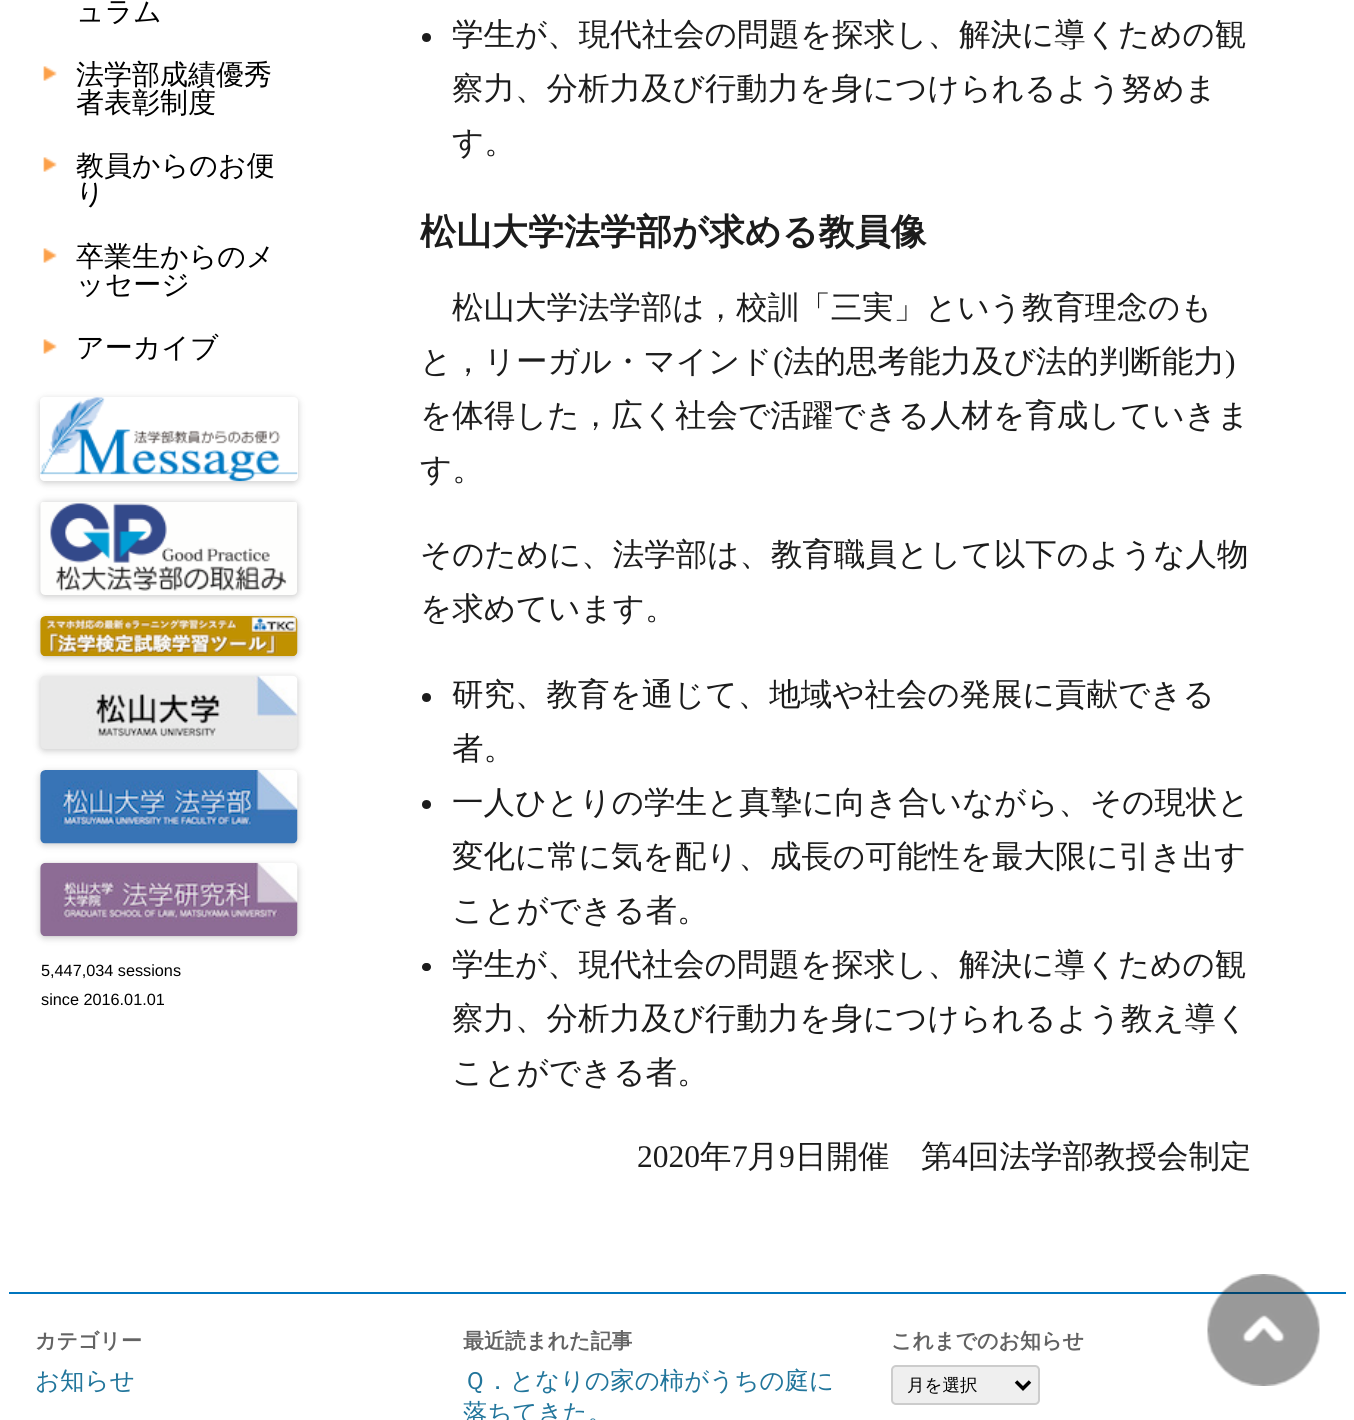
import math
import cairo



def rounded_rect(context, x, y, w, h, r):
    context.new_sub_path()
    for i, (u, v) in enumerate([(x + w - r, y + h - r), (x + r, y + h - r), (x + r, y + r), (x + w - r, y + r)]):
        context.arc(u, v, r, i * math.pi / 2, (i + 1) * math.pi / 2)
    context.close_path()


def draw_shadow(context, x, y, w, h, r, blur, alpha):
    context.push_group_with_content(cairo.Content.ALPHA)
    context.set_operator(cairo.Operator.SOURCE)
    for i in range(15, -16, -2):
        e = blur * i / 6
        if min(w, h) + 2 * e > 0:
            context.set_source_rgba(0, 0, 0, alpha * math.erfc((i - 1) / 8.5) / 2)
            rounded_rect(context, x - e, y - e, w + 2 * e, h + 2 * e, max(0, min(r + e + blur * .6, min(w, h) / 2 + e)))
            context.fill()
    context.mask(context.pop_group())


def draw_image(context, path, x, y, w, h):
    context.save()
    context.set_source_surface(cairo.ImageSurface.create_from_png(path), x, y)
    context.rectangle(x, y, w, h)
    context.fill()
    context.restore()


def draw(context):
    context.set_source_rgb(1, 1, 1)
    context.paint()
    draw_image(context, "images/1.png", 43, 66, 14, 15)
    draw_image(context, "images/1.png", 43, 157, 14, 15)
    draw_image(context, "images/1.png", 43, 248, 14, 15)
    draw_image(context, "images/1.png", 43, 339, 14, 15)
    context.save()
    context.set_fill_rule(cairo.FillRule.EVEN_ODD)
    context.new_path()
    context.move_to(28, 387)
    context.line_to(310, 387)
    context.line_to(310, 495)
    context.line_to(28, 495)
    context.close_path()
    context.move_to(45, 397)
    context.line_to(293, 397)
    context.curve_to(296, 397, 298, 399, 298, 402)
    context.line_to(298, 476)
    context.curve_to(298, 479, 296, 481, 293, 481)
    context.line_to(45, 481)
    context.curve_to(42, 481, 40, 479, 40, 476)
    context.line_to(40, 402)
    context.curve_to(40, 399, 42, 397, 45, 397)
    context.close_path()
    context.clip()
    context.set_source_rgb(0, 0, 0)
    draw_shadow(context, 40, 399, 258, 84, 5, 3.5, 0.2)
    context.restore()
    draw_image(context, "images/2.png", 40, 397, 258, 85)
    context.set_source_rgb(0, 0, 0)
    draw_shadow(context, 40, 502, 258, 95, 5, 3.5, 0.2)
    draw_image(context, "images/3.png", 40, 502, 257, 93)
    draw_shadow(context, 40, 618, 258, 40, 5, 3.5, 0.2)
    draw_image(context, "images/4.png", 40, 616, 258, 41)
    draw_shadow(context, 40, 677, 258, 74, 5, 3.5, 0.2)
    draw_image(context, "images/5.png", 40, 675, 258, 74)
    draw_shadow(context, 40, 772, 258, 73, 5, 3.5, 0.2)
    draw_image(context, "images/6.png", 40, 770, 258, 74)
    draw_shadow(context, 40, 865, 258, 73, 5, 3.5, 0.2)
    draw_image(context, "images/7.png", 40, 862, 258, 75)
    context.set_source_rgb(28 / 255, 28 / 255, 28 / 255)
    context.arc(426.5, 37.5, 4.5, 0, 2 * math.pi)
    context.fill()
    context.arc(426.5, 697.5, 4.5, 0, 2 * math.pi)
    context.fill()
    context.arc(426.5, 804.5, 4.5, 0, 2 * math.pi)
    context.fill()
    rounded_rect(context, 422, 963, 9, 8, 4)
    context.fill()
    context.set_source_rgb(0, 117 / 255, 190 / 255)
    context.rectangle(9, 1292, 1337, 2)
    context.fill()
    context.set_source_rgb(239 / 255, 239 / 255, 239 / 255)
    rounded_rect(context, 892, 1366, 147, 38, 4)
    context.fill_preserve()
    context.set_source_rgb(204 / 255, 204 / 255, 204 / 255)
    context.stroke()
    context.new_path()
    context.move_to(1016, 1381.5)
    context.line_to(1023, 1388.5)
    context.line_to(1030, 1381.5)
    context.set_source_rgb(0, 0, 0)
    context.set_line_width(3.5)
    context.stroke()
    draw_image(context, "images/8.png", 1207, 1274, 113, 112)
    context.select_font_face("WenQuanYi Zen Hei Medium")
    context.set_font_size(28)
    context.move_to(76, 21)
    context.show_text("ュラム")
    context.move_to(76, 84)
    context.show_text("法学部成績優秀")
    context.move_to(76, 112)
    context.show_text("者表彰制度")
    context.move_to(76, 175)
    context.show_text("教員からのお便")
    context.move_to(76, 203)
    context.show_text("り")
    context.move_to(76, 266)
    context.show_text("卒業生からのメ")
    context.move_to(76, 294)
    context.show_text("ッセージ")
    context.move_to(76, 357)
    context.show_text("アーカイブ")
    context.select_font_face("Liberation Sans")
    context.set_font_size(16.25)
    context.move_to(41, 976)
    context.show_text("5,447,034 sessions")
    context.move_to(41, 1005)
    context.show_text("since 2016.01.01")
    context.select_font_face("WenQuanYi Zen Hei Medium")
    context.set_font_size(31.5)
    context.set_source_rgb(28 / 255, 28 / 255, 28 / 255)
    context.move_to(452, 45)
    context.show_text("学生が、現代社会の問題を探求し、解決に導くための観")
    context.move_to(452, 99)
    context.show_text("察力、分析力及び行動力を身につけられるよう努めま")
    context.move_to(452, 153)
    context.show_text("す。")
    context.select_font_face("WenQuanYi Zen Hei", cairo.FontSlant.NORMAL, cairo.FontWeight.BOLD)
    context.set_font_size(36)
    context.move_to(420, 244)
    context.show_text("松山大学法学部が求める教員像")
    context.select_font_face("WenQuanYi Zen Hei Medium")
    context.set_font_size(31.5)
    context.move_to(452, 318)
    context.show_text("松山大学法学部は，校訓「三実」という教育理念のも")
    context.move_to(420, 372)
    context.show_text("と，リーガル・マインド")
    context.select_font_face("Liberation Serif")
    context.move_to(773, 372)
    context.show_text("(")
    context.select_font_face("WenQuanYi Zen Hei Medium")
    context.move_to(783, 372)
    context.show_text("法的思考能力及び法的判断能力")
    context.select_font_face("Liberation Serif")
    context.move_to(1225, 372)
    context.show_text(")")
    context.select_font_face("WenQuanYi Zen Hei Medium")
    context.move_to(420, 426)
    context.show_text("を体得した，広く社会で活躍できる人材を育成していきま")
    context.move_to(420, 480)
    context.show_text("す。")
    context.move_to(420, 565)
    context.show_text("そのために、法学部は、教育職員として以下のような人物")
    context.move_to(420, 619)
    context.show_text("を求めています。")
    context.move_to(452, 705)
    context.show_text("研究、教育を通じて、地域や社会の発展に貢献できる")
    context.move_to(452, 759)
    context.show_text("者。")
    context.move_to(452, 813)
    context.show_text("一人ひとりの学生と真摯に向き合いながら、その現状と")
    context.move_to(452, 867)
    context.show_text("変化に常に気を配り、成長の可能性を最大限に引き出す")
    context.move_to(452, 921)
    context.show_text("ことができる者。")
    context.move_to(452, 975)
    context.show_text("学生が、現代社会の問題を探求し、解決に導くための観")
    context.move_to(452, 1029)
    context.show_text("察力、分析力及び行動力を身につけられるよう教え導く")
    context.move_to(452, 1083)
    context.show_text("ことができる者。")
    context.select_font_face("Liberation Serif")
    context.move_to(637, 1167)
    context.show_text("2020")
    context.select_font_face("WenQuanYi Zen Hei Medium")
    context.move_to(700, 1167)
    context.show_text("年")
    context.select_font_face("Liberation Serif")
    context.move_to(732, 1167)
    context.show_text("7")
    context.select_font_face("WenQuanYi Zen Hei Medium")
    context.move_to(747, 1167)
    context.show_text("月")
    context.select_font_face("Liberation Serif")
    context.move_to(779, 1167)
    context.show_text("9")
    context.select_font_face("WenQuanYi Zen Hei Medium")
    context.move_to(795, 1167)
    context.show_text("日開催　第")
    context.select_font_face("Liberation Serif")
    context.move_to(952, 1167)
    context.show_text("4")
    context.select_font_face("WenQuanYi Zen Hei Medium")
    context.move_to(968, 1167)
    context.show_text("回法学部教授会制定")
    context.select_font_face("WenQuanYi Zen Hei", cairo.FontSlant.NORMAL, cairo.FontWeight.BOLD)
    context.set_font_size(21)
    context.set_source_rgb(99 / 255, 99 / 255, 99 / 255)
    context.move_to(35, 1348)
    context.show_text("カテゴリー")
    context.select_font_face("WenQuanYi Zen Hei Medium")
    context.set_font_size(24.5)
    context.set_source_rgb(33 / 255, 117 / 255, 155 / 255)
    context.move_to(35, 1389)
    context.show_text("お知らせ")
    context.select_font_face("WenQuanYi Zen Hei", cairo.FontSlant.NORMAL, cairo.FontWeight.BOLD)
    context.set_font_size(21)
    context.set_source_rgb(99 / 255, 99 / 255, 99 / 255)
    context.move_to(463, 1348)
    context.show_text("最近読まれた記事")
    context.select_font_face("WenQuanYi Zen Hei Medium")
    context.set_font_size(24.5)
    context.set_source_rgb(33 / 255, 117 / 255, 155 / 255)
    context.move_to(463, 1389)
    context.show_text("Ｑ．となりの家の柿がうちの庭に")
    context.move_to(463, 1421)
    context.show_text("落ちてきた。")
    context.select_font_face("WenQuanYi Zen Hei", cairo.FontSlant.NORMAL, cairo.FontWeight.BOLD)
    context.set_font_size(21)
    context.set_source_rgb(99 / 255, 99 / 255, 99 / 255)
    context.move_to(891, 1348)
    context.show_text("これまでのお知らせ")
    context.select_font_face("WenQuanYi Zen Hei Medium")
    context.set_font_size(17.5)
    context.set_source_rgb(0, 0, 0)
    context.move_to(907, 1391)
    context.show_text("月を選択")


surface = cairo.ImageSurface(cairo.Format.RGB24, 1354, 1420)
context = cairo.Context(surface)
options = cairo.FontOptions()
options.set_hint_metrics(cairo.HintMetrics.OFF)
options.set_hint_style(cairo.HintStyle.NONE)
context.set_font_options(options)
context.set_miter_limit(4)
draw(context)
surface.write_to_png("out.png")
